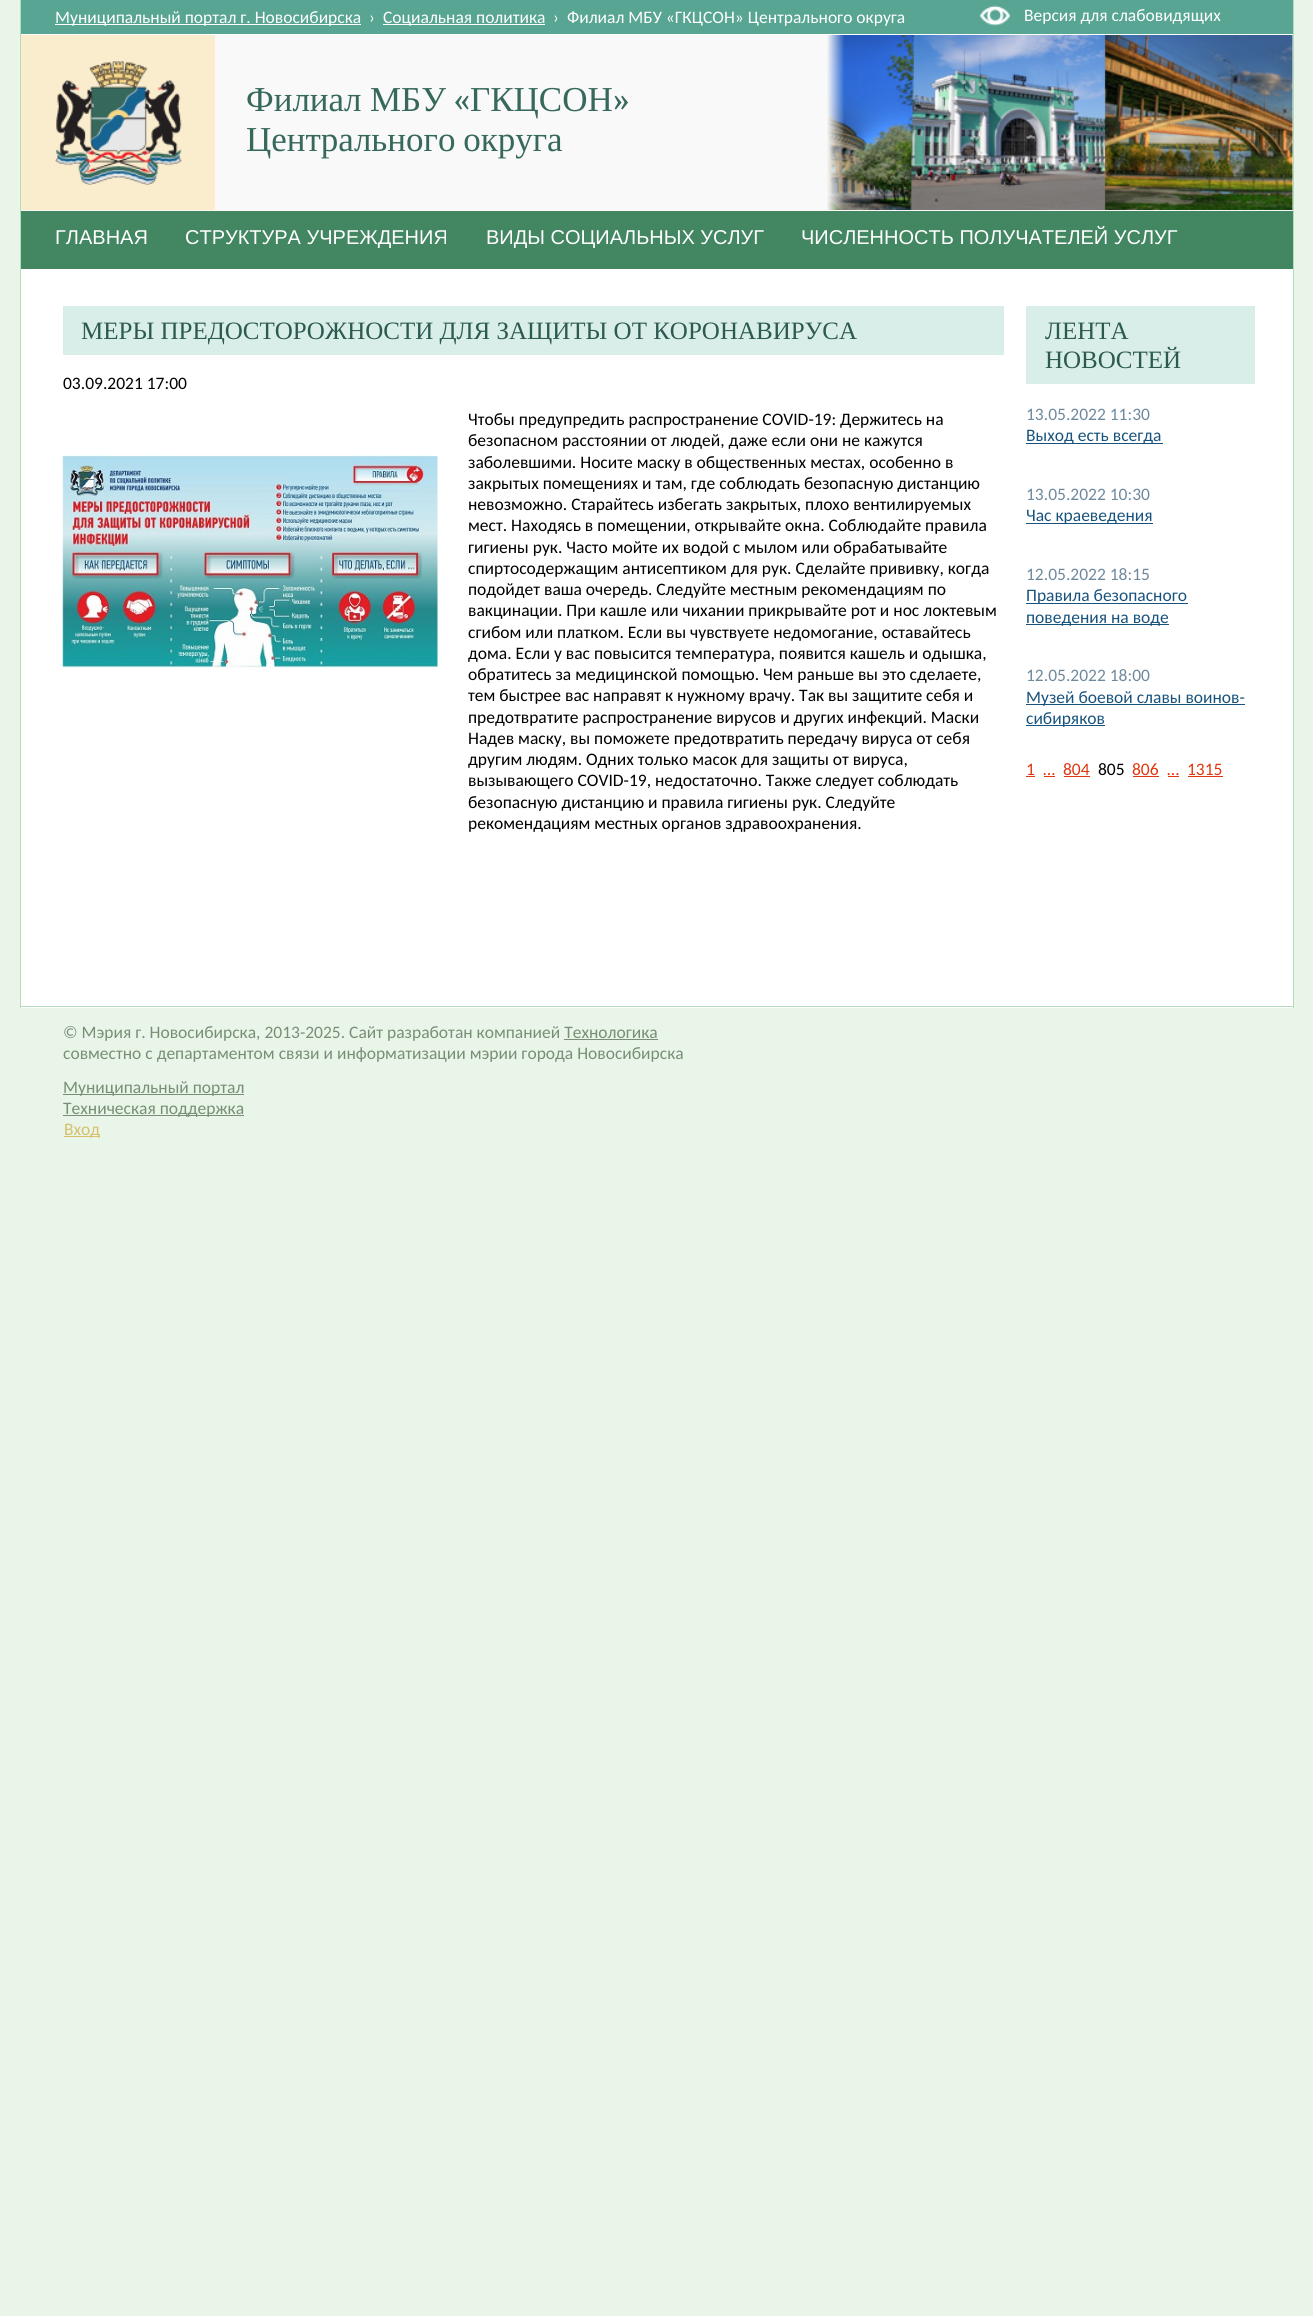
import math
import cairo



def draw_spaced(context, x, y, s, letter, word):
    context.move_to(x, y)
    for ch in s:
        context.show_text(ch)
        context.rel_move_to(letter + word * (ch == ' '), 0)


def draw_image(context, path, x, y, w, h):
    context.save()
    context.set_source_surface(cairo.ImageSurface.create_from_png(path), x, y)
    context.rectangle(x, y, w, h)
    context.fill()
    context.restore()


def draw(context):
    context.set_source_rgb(233 / 255, 245 / 255, 233 / 255)
    context.paint()
    context.set_source_rgb(1, 1, 1)
    context.rectangle(21, 269, 1272, 739)
    context.fill()
    context.set_source_rgb(180 / 255, 222 / 255, 186 / 255)
    context.rectangle(1293, 0, 1, 1008)
    context.fill()
    context.rectangle(20, 1006, 1274, 1)
    context.fill()
    context.rectangle(20, 0, 1, 1008)
    context.fill()
    context.set_source_rgb(249 / 255, 249 / 255, 249 / 255)
    context.rectangle(21, 34, 1272, 177)
    context.fill()
    draw_image(context, "images/1.png", 21, 34, 1271, 1)
    context.set_source_rgb(88 / 255, 165 / 255, 147 / 255)
    context.rectangle(21, 0, 1272, 34)
    context.fill()
    context.set_source_rgb(1, 1, 1)
    context.rectangle(55, 24, 306, 1)
    context.fill()
    context.rectangle(383, 24, 162, 1)
    context.fill()
    context.set_source_rgb(250 / 255, 237 / 255, 205 / 255)
    context.rectangle(21, 35, 194, 175)
    context.fill()
    draw_image(context, "images/2.png", 55, 61, 127, 124)
    draw_image(context, "images/3.png", 827, 35, 466, 175)
    draw_image(context, "images/4.png", 708, 35, 136, 175)
    draw_image(context, "images/5.png", 980, 5, 30, 21)
    context.set_source_rgb(66 / 255, 134 / 255, 98 / 255)
    context.rectangle(21, 211, 1272, 58)
    context.fill()
    context.set_source_rgb(217 / 255, 238 / 255, 233 / 255)
    context.rectangle(63, 306, 941, 49)
    context.fill()
    draw_image(context, "images/6.png", 62, 454, 376, 215)
    context.rectangle(1026, 306, 229, 78)
    context.fill()
    context.set_source_rgb(24 / 255, 83 / 255, 125 / 255)
    context.rectangle(1026, 443, 137, 1)
    context.fill()
    context.rectangle(1026, 523, 127, 1)
    context.fill()
    context.rectangle(1026, 603, 162, 1)
    context.fill()
    context.rectangle(1026, 624, 143, 1)
    context.fill()
    context.rectangle(1026, 704, 219, 1)
    context.fill()
    context.rectangle(1026, 725, 79, 1)
    context.fill()
    context.set_source_rgb(223 / 255, 55 / 255, 16 / 255)
    context.rectangle(1026, 776, 9, 1)
    context.fill()
    context.rectangle(1044, 776, 11, 1)
    context.fill()
    context.rectangle(1064, 776, 26, 1)
    context.fill()
    context.rectangle(1133, 776, 26, 1)
    context.fill()
    context.rectangle(1168, 776, 11, 1)
    context.fill()
    context.rectangle(1188, 776, 35, 1)
    context.fill()
    context.set_source_rgb(119 / 255, 143 / 255, 117 / 255)
    context.rectangle(564, 1039, 94, 1)
    context.fill()
    context.rectangle(63, 1094, 181, 1)
    context.fill()
    context.rectangle(63, 1115, 181, 1)
    context.fill()
    context.set_source_rgb(214 / 255, 192 / 255, 106 / 255)
    context.rectangle(64, 1136, 36, 1)
    context.fill()
    context.select_font_face("Carlito")
    context.set_font_size(17.5)
    context.set_source_rgb(1, 1, 1)
    context.move_to(55, 23)
    context.show_text("Муниципальный портал г. Новосибирска")
    context.move_to(369, 23)
    context.show_text("›")
    context.move_to(383, 23)
    context.show_text("Социальная политика")
    context.move_to(553, 23)
    context.show_text("›")
    context.move_to(567, 23)
    context.show_text("Филиал МБУ «ГКЦСОН» Центрального округа")
    context.select_font_face("Liberation Serif")
    context.set_font_size(35)
    context.set_source_rgb(54 / 255, 104 / 255, 92 / 255)
    context.move_to(246, 111)
    context.show_text("Филиал")
    context.move_to(370, 111)
    context.show_text("МБУ")
    context.select_font_face("Caladea")
    context.move_to(453, 111)
    context.show_text("«")
    context.select_font_face("Liberation Serif")
    context.move_to(470, 111)
    context.show_text("ГКЦСОН")
    context.select_font_face("Caladea")
    context.move_to(613, 111)
    context.show_text("»")
    context.select_font_face("Liberation Serif")
    draw_spaced(context, 246, 151, "Центрального округа", 0, -1)
    context.select_font_face("Carlito")
    context.set_font_size(17.5)
    context.set_source_rgb(1, 1, 1)
    context.move_to(1024, 21)
    context.show_text("Версия для слабовидящих")
    context.select_font_face("Liberation Sans")
    context.set_font_size(20)
    context.move_to(55, 244)
    context.show_text("ГЛАВНАЯ")
    context.move_to(185, 244)
    context.show_text("СТРУКТУРА УЧРЕЖДЕНИЯ")
    context.move_to(486, 244)
    context.show_text("ВИДЫ СОЦИАЛЬНЫХ УСЛУГ")
    context.move_to(801, 244)
    context.show_text("ЧИСЛЕННОСТЬ ПОЛУЧАТЕЛЕЙ УСЛУГ")
    context.select_font_face("Liberation Serif")
    context.set_font_size(25)
    context.set_source_rgb(44 / 255, 90 / 255, 80 / 255)
    context.move_to(81, 339)
    context.show_text("МЕРЫ ПРЕДОСТОРОЖНОСТИ ДЛЯ ЗАЩИТЫ ОТ КОРОНАВИРУСА")
    context.select_font_face("Carlito")
    context.set_font_size(17.5)
    context.set_source_rgb(0, 0, 0)
    context.move_to(63, 389)
    context.show_text("03.09.2021 17:00")
    context.move_to(468, 425)
    context.show_text("Чтобы предупредить распространение COVID-19: Держитесь на")
    context.move_to(468, 446)
    context.show_text("безопасном расстоянии от людей, даже если они не кажутся")
    context.move_to(468, 468)
    context.show_text("заболевшими. Носите маску в общественных местах, особенно в")
    context.move_to(468, 489)
    context.show_text("закрытых помещениях и там, где соблюдать безопасную дистанцию")
    context.move_to(468, 510)
    context.show_text("невозможно. Старайтесь избегать закрытых, плохо вентилируемых")
    context.move_to(468, 531)
    context.show_text("мест. Находясь в помещении, открывайте окна. Соблюдайте правила")
    context.move_to(468, 553)
    context.show_text("гигиены рук. Часто мойте их водой с мылом или обрабатывайте")
    context.move_to(468, 574)
    context.show_text("спиртосодержащим антисептиком для рук. Сделайте прививку, когда")
    context.move_to(468, 595)
    context.show_text("подойдет ваша очередь. Следуйте местным рекомендациям по")
    context.move_to(468, 616)
    context.show_text("вакцинации. При кашле или чихании прикрывайте рот и нос локтевым")
    context.move_to(468, 638)
    context.show_text("сгибом или платком. Если вы чувствуете недомогание, оставайтесь")
    context.move_to(468, 659)
    context.show_text("дома. Если у вас повысится температура, появится кашель и одышка,")
    context.move_to(468, 680)
    context.show_text("обратитесь за медицинской помощью. Чем раньше вы это сделаете,")
    context.move_to(468, 701)
    context.show_text("тем быстрее вас направят к нужному врачу. Так вы защитите себя и")
    context.move_to(468, 723)
    context.show_text("предотвратите распространение вирусов и других инфекций. Маски")
    context.move_to(468, 744)
    context.show_text("Надев маску, вы поможете предотвратить передачу вируса от себя")
    context.move_to(468, 765)
    context.show_text("другим людям. Одних только масок для защиты от вируса,")
    context.move_to(468, 786)
    context.show_text("вызывающего COVID-19, недостаточно. Также следует соблюдать")
    context.move_to(468, 808)
    context.show_text("безопасную дистанцию и правила гигиены рук. Следуйте")
    context.move_to(468, 829)
    context.show_text("рекомендациям местных органов здравоохранения.")
    context.select_font_face("Liberation Serif")
    context.set_font_size(25)
    context.set_source_rgb(44 / 255, 90 / 255, 80 / 255)
    context.move_to(1045, 339)
    context.show_text("ЛЕНТА")
    context.move_to(1045, 368)
    context.show_text("НОВОСТЕЙ")
    context.select_font_face("Carlito")
    context.set_font_size(17.5)
    context.set_source_rgb(110 / 255, 137 / 255, 156 / 255)
    context.move_to(1026, 420)
    context.show_text("13.05.2022 11:30")
    context.set_source_rgb(24 / 255, 83 / 255, 125 / 255)
    context.move_to(1026, 441)
    context.show_text("Выход есть всегда")
    context.set_source_rgb(110 / 255, 137 / 255, 156 / 255)
    context.move_to(1026, 500)
    context.show_text("13.05.2022 10:30")
    context.set_source_rgb(24 / 255, 83 / 255, 125 / 255)
    context.move_to(1026, 521)
    context.show_text("Час краеведения")
    context.set_source_rgb(110 / 255, 137 / 255, 156 / 255)
    context.move_to(1026, 580)
    context.show_text("12.05.2022 18:15")
    context.set_source_rgb(24 / 255, 83 / 255, 125 / 255)
    context.move_to(1026, 601)
    context.show_text("Правила безопасного")
    context.move_to(1026, 623)
    context.show_text("поведения на воде")
    context.set_source_rgb(110 / 255, 137 / 255, 156 / 255)
    context.move_to(1026, 681)
    context.show_text("12.05.2022 18:00")
    context.set_source_rgb(24 / 255, 83 / 255, 125 / 255)
    context.move_to(1026, 703)
    context.show_text("Музей боевой славы воинов-")
    context.move_to(1026, 724)
    context.show_text("сибиряков")
    context.set_source_rgb(223 / 255, 55 / 255, 16 / 255)
    context.move_to(1026, 775)
    context.show_text("1")
    context.move_to(1043, 775)
    context.show_text("…")
    context.move_to(1063, 775)
    context.show_text("804")
    context.set_source_rgb(0, 0, 0)
    context.move_to(1098, 775)
    context.show_text("805")
    context.set_source_rgb(223 / 255, 55 / 255, 16 / 255)
    context.move_to(1132, 775)
    context.show_text("806")
    context.move_to(1167, 775)
    context.show_text("…")
    context.move_to(1187, 775)
    context.show_text("1315")
    context.set_source_rgb(119 / 255, 143 / 255, 117 / 255)
    context.move_to(63, 1038)
    context.show_text("© Мэрия г. Новосибирска, 2013-2025. Сайт разработан компанией Технологика")
    context.move_to(63, 1059)
    context.show_text("совместно с департаментом связи и информатизации мэрии города Новосибирска")
    context.move_to(63, 1093)
    context.show_text("Муниципальный портал")
    context.move_to(63, 1114)
    context.show_text("Техническая поддержка")
    context.set_source_rgb(214 / 255, 192 / 255, 106 / 255)
    context.move_to(64, 1135)
    context.show_text("Вход")


surface = cairo.ImageSurface(cairo.Format.RGB24, 1313, 2316)
context = cairo.Context(surface)
options = cairo.FontOptions()
options.set_hint_metrics(cairo.HintMetrics.OFF)
options.set_hint_style(cairo.HintStyle.NONE)
context.set_font_options(options)
context.set_miter_limit(4)
draw(context)
surface.write_to_png("out.png")
